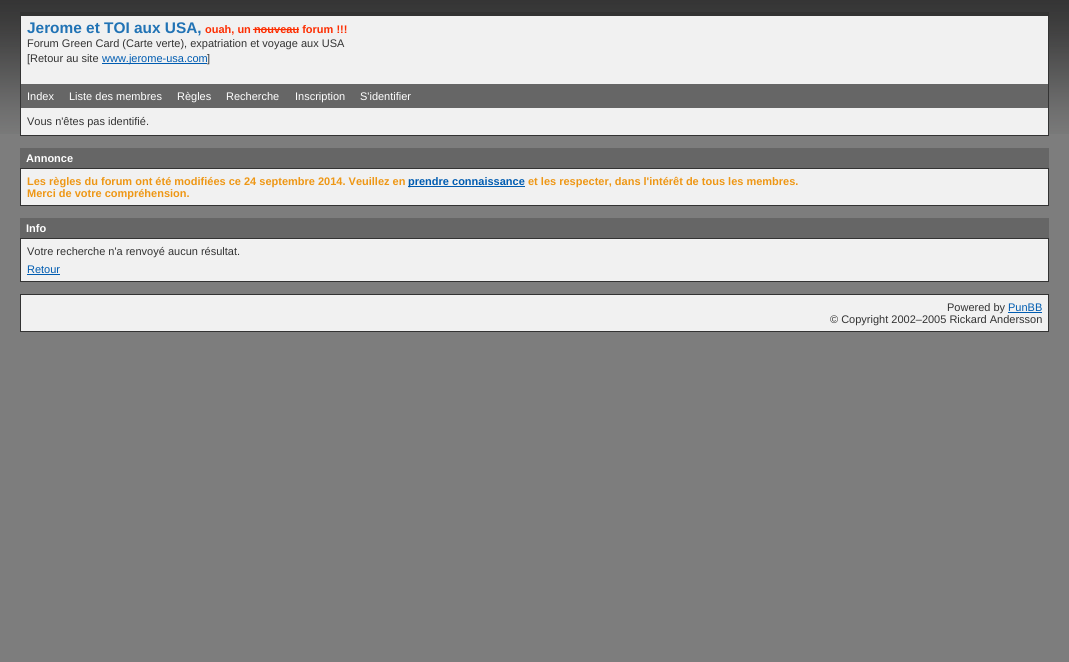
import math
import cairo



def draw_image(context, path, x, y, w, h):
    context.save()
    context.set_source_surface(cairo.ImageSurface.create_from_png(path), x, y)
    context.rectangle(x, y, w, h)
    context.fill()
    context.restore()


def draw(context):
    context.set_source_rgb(125 / 255, 125 / 255, 125 / 255)
    context.paint()
    draw_image(context, "images/1.png", 0, 0, 1069, 134)
    context.set_source_rgb(241 / 255, 241 / 255, 241 / 255)
    context.rectangle(21, 16, 1027, 119)
    context.fill()
    context.set_source_rgb(51 / 255, 51 / 255, 51 / 255)
    context.rectangle(20, 12, 1029, 4)
    context.fill()
    context.rectangle(1048, 12, 1, 124)
    context.fill()
    context.rectangle(20, 135, 1029, 1)
    context.fill()
    context.rectangle(20, 12, 1, 124)
    context.fill()
    context.set_source_rgb(253 / 255, 46 / 255, 2 / 255)
    context.rectangle(253, 29, 46, 1)
    context.fill()
    context.set_source_rgb(0, 92 / 255, 177 / 255)
    context.rectangle(102, 63, 105, 1)
    context.fill()
    context.set_source_rgb(102 / 255, 102 / 255, 102 / 255)
    context.rectangle(21, 84, 1027, 24)
    context.fill()
    context.rectangle(20, 148, 1029, 20)
    context.fill()
    context.set_source_rgb(241 / 255, 241 / 255, 241 / 255)
    context.rectangle(20.5, 168.5, 1028, 37)
    context.fill_preserve()
    context.set_source_rgb(51 / 255, 51 / 255, 51 / 255)
    context.set_line_width(1)
    context.stroke()
    context.set_source_rgb(0, 92 / 255, 177 / 255)
    context.rectangle(408, 186, 117, 1)
    context.fill()
    context.set_source_rgb(102 / 255, 102 / 255, 102 / 255)
    context.rectangle(20, 218, 1029, 20)
    context.fill()
    context.set_source_rgb(241 / 255, 241 / 255, 241 / 255)
    context.rectangle(20.5, 238.5, 1028, 43)
    context.fill_preserve()
    context.set_source_rgb(51 / 255, 51 / 255, 51 / 255)
    context.stroke()
    context.set_source_rgb(0, 92 / 255, 177 / 255)
    context.rectangle(27, 274, 33, 1)
    context.fill()
    context.set_source_rgb(241 / 255, 241 / 255, 241 / 255)
    context.rectangle(20.5, 294.5, 1028, 37)
    context.fill_preserve()
    context.set_source_rgb(51 / 255, 51 / 255, 51 / 255)
    context.stroke()
    context.set_source_rgb(0, 92 / 255, 177 / 255)
    context.rectangle(1008, 312, 34, 1)
    context.fill()
    context.select_font_face("Liberation Sans", cairo.FontSlant.NORMAL, cairo.FontWeight.BOLD)
    context.set_font_size(15.4)
    context.set_source_rgb(33 / 255, 115 / 255, 181 / 255)
    context.move_to(27, 33)
    context.show_text("Jerome et TOI aux USA,")
    context.set_font_size(11)
    context.set_source_rgb(253 / 255, 46 / 255, 2 / 255)
    context.move_to(205, 33)
    context.show_text("ouah, un nouveau forum !!!")
    context.select_font_face("Liberation Sans")
    context.set_source_rgb(51 / 255, 51 / 255, 51 / 255)
    context.move_to(27, 47)
    context.show_text("Forum Green Card (Carte verte), expatriation et voyage aux USA")
    context.move_to(27, 62)
    context.show_text("[Retour au site")
    context.set_source_rgb(0, 92 / 255, 177 / 255)
    context.move_to(102, 62)
    context.show_text("www.jerome-usa.com")
    context.set_source_rgb(51 / 255, 51 / 255, 51 / 255)
    context.move_to(207, 62)
    context.show_text("]")
    context.set_source_rgb(1, 1, 1)
    context.move_to(27, 100)
    context.show_text("Index")
    context.move_to(69, 100)
    context.show_text("Liste des membres")
    context.move_to(177, 100)
    context.show_text("Règles")
    context.move_to(226, 100)
    context.show_text("Recherche")
    context.move_to(295, 100)
    context.show_text("Inscription")
    context.move_to(360, 100)
    context.show_text("S'identifier")
    context.set_source_rgb(51 / 255, 51 / 255, 51 / 255)
    context.move_to(27, 125)
    context.show_text("Vous n'êtes pas identifié.")
    context.select_font_face("Liberation Sans", cairo.FontSlant.NORMAL, cairo.FontWeight.BOLD)
    context.set_source_rgb(1, 1, 1)
    context.move_to(26, 162)
    context.show_text("Annonce")
    context.set_source_rgb(238 / 255, 151 / 255, 21 / 255)
    context.move_to(27, 185)
    context.show_text("Les règles du forum ont été modifiées ce 24 septembre 2014. Veuillez en")
    context.set_source_rgb(0, 92 / 255, 177 / 255)
    context.move_to(408, 185)
    context.show_text("prendre connaissance")
    context.set_source_rgb(238 / 255, 151 / 255, 21 / 255)
    context.move_to(528, 185)
    context.show_text("et les respecter, dans l'intérêt de tous les membres.")
    context.move_to(27, 197)
    context.show_text("Merci de votre compréhension.")
    context.set_source_rgb(1, 1, 1)
    context.move_to(26, 232)
    context.show_text("Info")
    context.select_font_face("Liberation Sans")
    context.set_source_rgb(51 / 255, 51 / 255, 51 / 255)
    context.move_to(27, 255)
    context.show_text("Votre recherche n'a renvoyé aucun résultat.")
    context.set_source_rgb(0, 92 / 255, 177 / 255)
    context.move_to(27, 273)
    context.show_text("Retour")
    context.set_source_rgb(51 / 255, 51 / 255, 51 / 255)
    context.move_to(947, 311)
    context.show_text("Powered by")
    context.set_source_rgb(0, 92 / 255, 177 / 255)
    context.move_to(1008, 311)
    context.show_text("PunBB")
    context.set_source_rgb(51 / 255, 51 / 255, 51 / 255)
    context.move_to(830, 323)
    context.show_text("© Copyright 2002–2005 Rickard Andersson")


surface = cairo.ImageSurface(cairo.Format.RGB24, 1069, 662)
context = cairo.Context(surface)
options = cairo.FontOptions()
options.set_hint_metrics(cairo.HintMetrics.OFF)
options.set_hint_style(cairo.HintStyle.NONE)
context.set_font_options(options)
context.set_miter_limit(4)
draw(context)
surface.write_to_png("out.png")
